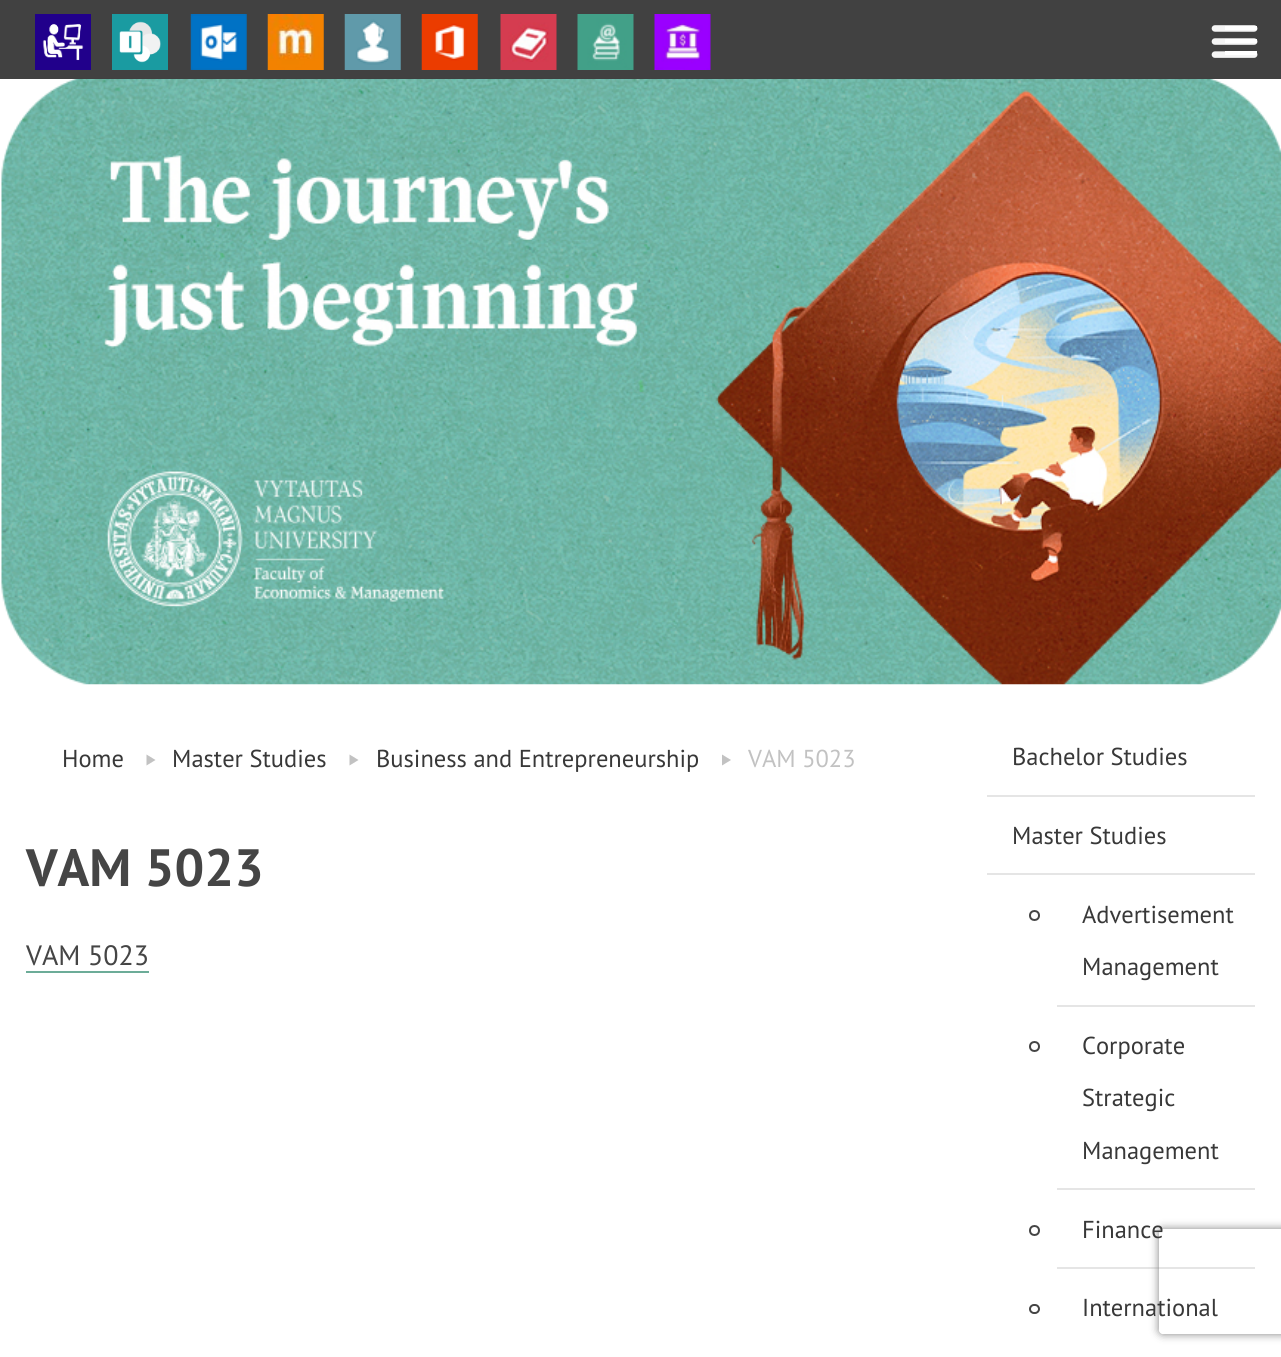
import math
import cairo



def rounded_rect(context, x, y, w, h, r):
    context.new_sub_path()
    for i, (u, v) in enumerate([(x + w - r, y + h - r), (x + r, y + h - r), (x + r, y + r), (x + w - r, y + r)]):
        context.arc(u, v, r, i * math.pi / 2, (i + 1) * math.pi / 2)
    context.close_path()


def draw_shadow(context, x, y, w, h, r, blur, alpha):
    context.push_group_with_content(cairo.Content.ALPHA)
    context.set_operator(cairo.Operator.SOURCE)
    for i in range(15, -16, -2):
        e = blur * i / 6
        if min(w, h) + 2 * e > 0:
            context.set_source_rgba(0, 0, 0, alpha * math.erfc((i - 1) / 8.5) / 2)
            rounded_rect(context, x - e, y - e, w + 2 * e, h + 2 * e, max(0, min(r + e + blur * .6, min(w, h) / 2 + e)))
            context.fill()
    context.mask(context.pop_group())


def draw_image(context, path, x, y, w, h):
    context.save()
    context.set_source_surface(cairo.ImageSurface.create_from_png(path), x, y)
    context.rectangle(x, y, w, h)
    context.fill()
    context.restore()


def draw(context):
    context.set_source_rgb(1, 1, 1)
    context.paint()
    draw_image(context, "images/11.png", 1, 78, 1280, 607)
    context.set_source_rgba(56 / 255, 56 / 255, 56 / 255, 0.95)
    context.rectangle(0, 0, 1281, 79)
    context.fill()
    draw_image(context, "images/1.png", 1211, 25, 47, 33)
    context.set_source_rgb(1, 1, 1)
    context.rectangle(1225, 51, 32, 4)
    context.fill()
    context.rectangle(1225, 39, 32, 4)
    context.fill()
    context.rectangle(1225, 26, 32, 4)
    context.fill()
    draw_image(context, "images/2.png", 35, 14, 56, 56)
    draw_image(context, "images/3.png", 112, 14, 56, 56)
    draw_image(context, "images/4.png", 190, 14, 57, 56)
    draw_image(context, "images/5.png", 267, 14, 57, 56)
    draw_image(context, "images/6.png", 344, 14, 57, 56)
    draw_image(context, "images/7.png", 421, 14, 57, 56)
    draw_image(context, "images/8.png", 500, 14, 57, 56)
    draw_image(context, "images/9.png", 577, 14, 57, 56)
    draw_image(context, "images/10.png", 654, 14, 57, 56)
    context.set_source_rgb(194 / 255, 194 / 255, 194 / 255)
    context.new_path()
    context.move_to(146.5, 754.5)
    context.line_to(155.5, 760)
    context.line_to(146.5, 765.5)
    context.close_path()
    context.fill()
    context.new_path()
    context.move_to(349.5, 754.5)
    context.line_to(358.5, 760)
    context.line_to(349.5, 765.5)
    context.close_path()
    context.fill()
    context.new_path()
    context.move_to(722, 754.5)
    context.line_to(731, 760)
    context.line_to(722, 765.5)
    context.close_path()
    context.fill()
    context.set_source_rgb(108 / 255, 172 / 255, 152 / 255)
    context.rectangle(26, 971, 123, 2)
    context.fill()
    context.set_source_rgb(229 / 255, 229 / 255, 229 / 255)
    context.rectangle(987, 795, 268, 2)
    context.fill()
    context.rectangle(987, 873, 268, 2)
    context.fill()
    context.arc(1034.5, 915.5, 4.5, 0, 2 * math.pi)
    context.set_source_rgb(69 / 255, 69 / 255, 69 / 255)
    context.stroke()
    context.set_source_rgb(229 / 255, 229 / 255, 229 / 255)
    context.rectangle(1057, 1005, 198, 2)
    context.fill()
    context.arc(1034.5, 1046.5, 4.5, 0, 2 * math.pi)
    context.set_source_rgb(69 / 255, 69 / 255, 69 / 255)
    context.stroke()
    context.set_source_rgb(229 / 255, 229 / 255, 229 / 255)
    context.rectangle(1057, 1188, 198, 2)
    context.fill()
    context.arc(1034.5, 1230.5, 4.5, 0, 2 * math.pi)
    context.set_source_rgb(69 / 255, 69 / 255, 69 / 255)
    context.stroke()
    context.set_source_rgb(229 / 255, 229 / 255, 229 / 255)
    context.rectangle(1057, 1267, 198, 2)
    context.fill()
    rounded_rect(context, 1030, 1305, 9, 8, 4)
    context.set_source_rgb(69 / 255, 69 / 255, 69 / 255)
    context.stroke()
    context.save()
    context.set_fill_rule(cairo.FillRule.EVEN_ODD)
    context.new_path()
    context.move_to(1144, 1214)
    context.line_to(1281, 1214)
    context.line_to(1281, 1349)
    context.line_to(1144, 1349)
    context.close_path()
    context.move_to(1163, 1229)
    context.line_to(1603, 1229)
    context.curve_to(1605, 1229, 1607, 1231, 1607, 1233)
    context.line_to(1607, 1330)
    context.curve_to(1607, 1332, 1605, 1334, 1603, 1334)
    context.line_to(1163, 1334)
    context.curve_to(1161, 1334, 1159, 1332, 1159, 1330)
    context.line_to(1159, 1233)
    context.curve_to(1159, 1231, 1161, 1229, 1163, 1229)
    context.close_path()
    context.clip()
    context.set_source_rgb(128 / 255, 128 / 255, 128 / 255)
    draw_shadow(context, 1159, 1229, 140, 105, 4, 4.5, 1)
    context.restore()
    context.select_font_face("PT Sans")
    context.set_font_size(24.5)
    context.set_source_rgb(56 / 255, 56 / 255, 56 / 255)
    context.move_to(62, 767)
    context.show_text("Home")
    context.move_to(172, 767)
    context.show_text("Master Studies")
    context.move_to(376, 767)
    context.show_text("Business and Entrepreneurship")
    context.set_source_rgb(194 / 255, 194 / 255, 194 / 255)
    context.move_to(748, 767)
    context.show_text("VAM 5023")
    context.select_font_face("PT Sans", cairo.FontSlant.NORMAL, cairo.FontWeight.BOLD)
    context.set_font_size(52.5)
    context.set_source_rgb(69 / 255, 69 / 255, 69 / 255)
    context.move_to(26, 886)
    context.show_text("VAM 5023")
    context.select_font_face("PT Sans")
    context.set_font_size(28)
    context.move_to(26, 965)
    context.show_text("VAM 5023")
    context.set_font_size(24.5)
    context.set_source_rgb(56 / 255, 56 / 255, 56 / 255)
    context.move_to(1012, 765)
    context.show_text("Bachelor Studies")
    context.move_to(1012, 844)
    context.show_text("Master Studies")
    context.move_to(1082, 923)
    context.show_text("Advertisement")
    context.move_to(1082, 975)
    context.show_text("Management")
    context.move_to(1082, 1054)
    context.show_text("Corporate")
    context.move_to(1082, 1106)
    context.show_text("Strategic")
    context.move_to(1082, 1159)
    context.show_text("Management")
    context.move_to(1082, 1238)
    context.show_text("Finance")
    context.move_to(1082, 1316)
    context.show_text("International")


surface = cairo.ImageSurface(cairo.Format.RGB24, 1281, 1357)
context = cairo.Context(surface)
options = cairo.FontOptions()
options.set_hint_metrics(cairo.HintMetrics.OFF)
options.set_hint_style(cairo.HintStyle.NONE)
context.set_font_options(options)
context.set_miter_limit(4)
draw(context)
surface.write_to_png("out.png")
